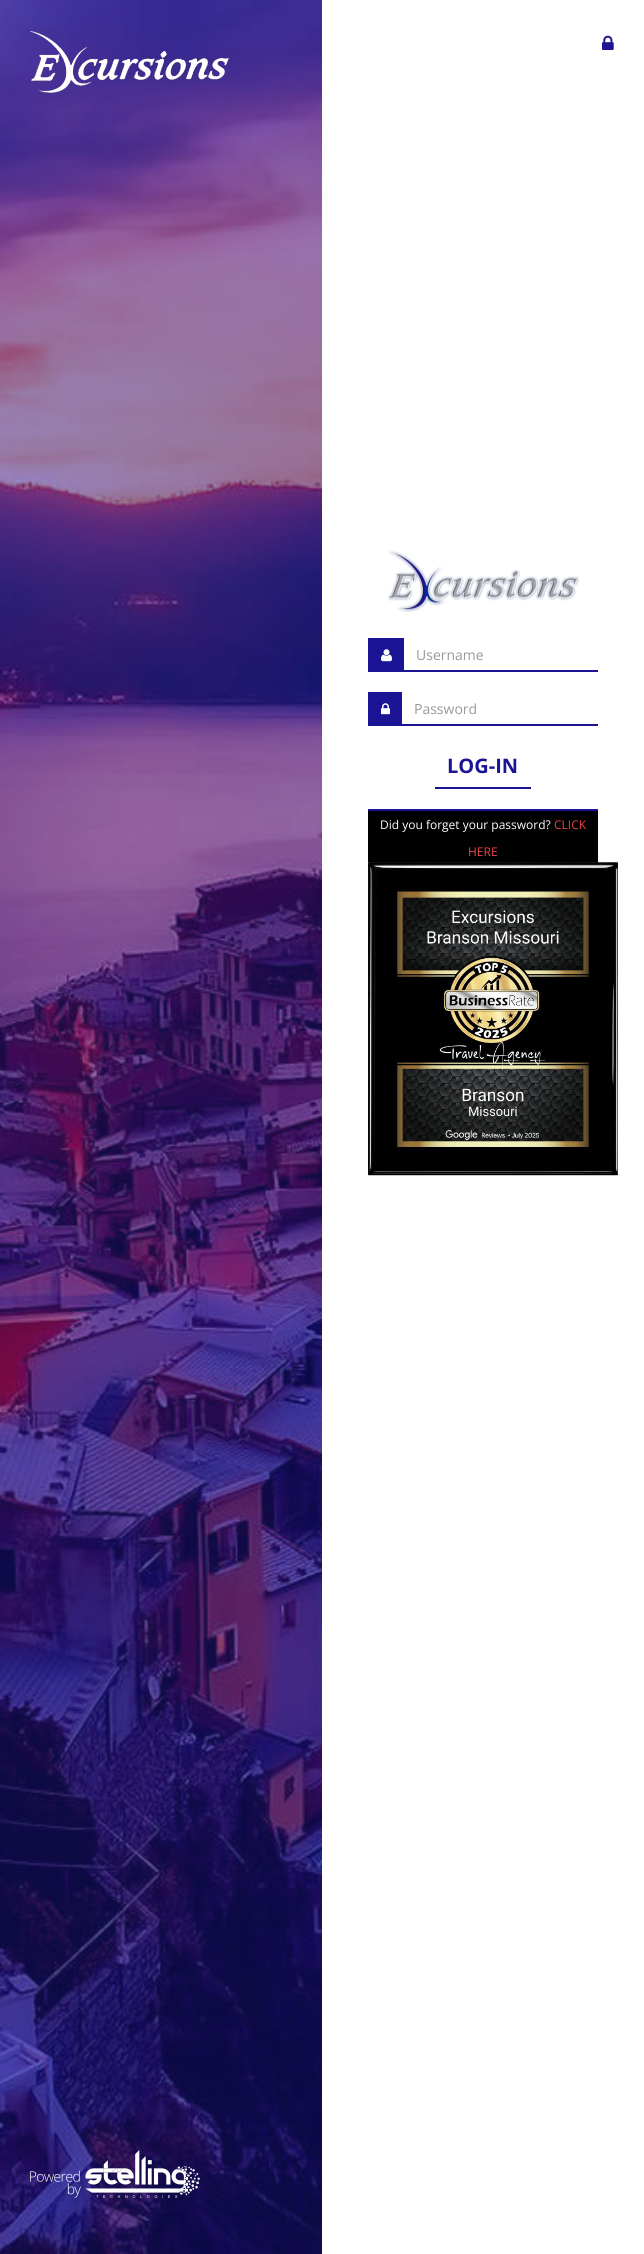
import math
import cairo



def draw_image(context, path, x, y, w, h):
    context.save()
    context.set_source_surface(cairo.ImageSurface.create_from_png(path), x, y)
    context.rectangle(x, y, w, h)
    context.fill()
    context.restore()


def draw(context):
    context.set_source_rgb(1, 1, 1)
    context.paint()
    draw_image(context, "images/1.png", 0, 0, 322, 2254)
    draw_image(context, "images/2.png", 30, 31, 199, 62)
    draw_image(context, "images/3.png", 602, 35, 12, 15)
    draw_image(context, "images/4.png", 30, 2150, 170, 48)
    draw_image(context, "images/5.png", 387, 550, 193, 62)
    context.set_source_rgb(27 / 255, 21 / 255, 150 / 255)
    context.rectangle(368, 638, 36, 34)
    context.fill()
    draw_image(context, "images/6.png", 381, 649, 11, 13)
    context.rectangle(404, 670, 194, 2)
    context.fill()
    context.rectangle(368, 692, 34, 34)
    context.fill()
    draw_image(context, "images/7.png", 381, 703, 9, 12)
    context.rectangle(402, 724, 196, 2)
    context.fill()
    context.rectangle(435, 787, 96, 2)
    context.fill()
    context.set_source_rgb(0, 0, 0)
    context.rectangle(368, 811, 230, 52)
    context.fill()
    context.set_source_rgb(27 / 255, 21 / 255, 150 / 255)
    context.rectangle(368, 809, 230, 2)
    context.fill()
    draw_image(context, "images/8.png", 368, 862, 250, 314)
    context.select_font_face("Open Sans")
    context.set_font_size(14)
    context.set_source_rgb(153 / 255, 153 / 255, 153 / 255)
    context.move_to(416, 660)
    context.show_text("Username")
    context.move_to(414, 714)
    context.show_text("Password")
    context.select_font_face("Open Sans", cairo.FontSlant.NORMAL, cairo.FontWeight.BOLD)
    context.set_font_size(20)
    context.set_source_rgb(27 / 255, 21 / 255, 150 / 255)
    context.move_to(447, 773)
    context.show_text("LOG-IN")
    context.select_font_face("Open Sans")
    context.set_font_size(12)
    context.set_source_rgb(1, 1, 1)
    context.move_to(380, 829)
    context.show_text("Did you forget your password?")
    context.set_source_rgb(232 / 255, 69 / 255, 69 / 255)
    context.move_to(554, 829)
    context.show_text("CLICK")
    context.move_to(468, 856)
    context.show_text("HERE")


surface = cairo.ImageSurface(cairo.Format.RGB24, 644, 2254)
context = cairo.Context(surface)
options = cairo.FontOptions()
options.set_hint_metrics(cairo.HintMetrics.OFF)
options.set_hint_style(cairo.HintStyle.NONE)
context.set_font_options(options)
context.set_miter_limit(4)
draw(context)
surface.write_to_png("out.png")
